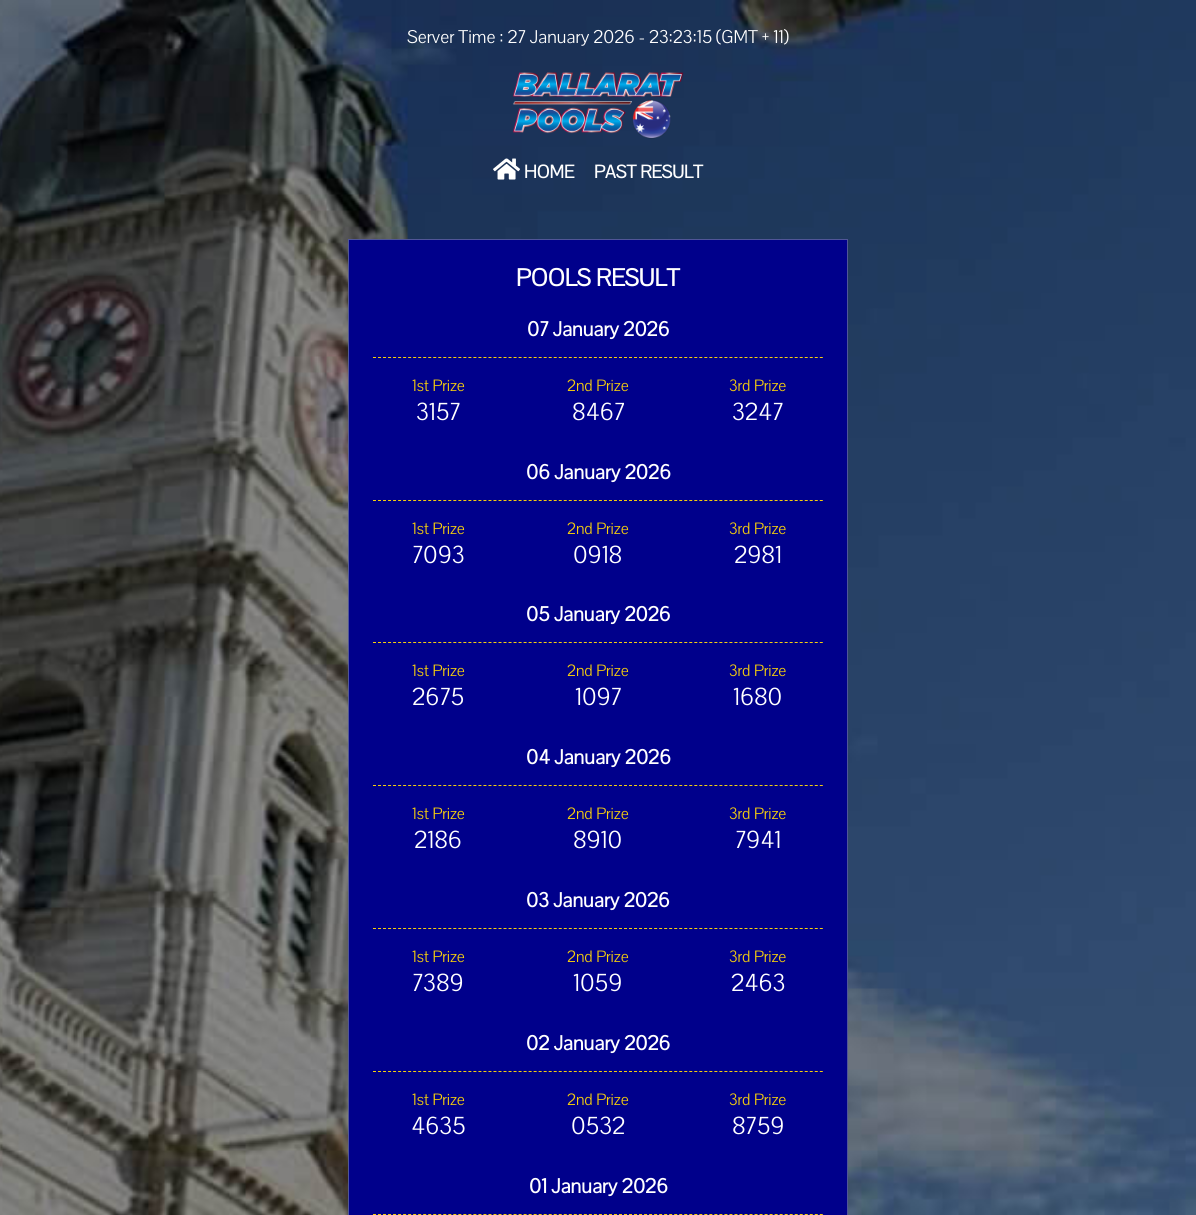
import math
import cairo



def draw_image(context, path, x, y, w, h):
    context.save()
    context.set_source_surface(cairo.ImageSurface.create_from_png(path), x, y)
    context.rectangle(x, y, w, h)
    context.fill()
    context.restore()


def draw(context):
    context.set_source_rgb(1, 1, 1)
    context.paint()
    draw_image(context, "images/1.png", 0, 0, 1196, 1215)
    draw_image(context, "images/2.png", 512, 72, 172, 67)
    draw_image(context, "images/3.png", 493, 158, 27, 22)
    context.set_source_rgb(0, 0, 139 / 255)
    context.rectangle(348.5, 239.5, 499, 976)
    context.fill_preserve()
    context.set_source_rgb(80 / 255, 85 / 255, 152 / 255)
    context.set_line_width(1)
    context.stroke()
    context.new_path()
    context.move_to(373, 357.5)
    context.line_to(823, 357.5)
    context.set_source_rgb(247 / 255, 207 / 255, 12 / 255)
    context.set_dash([3, 2.02])
    context.stroke()
    context.new_path()
    context.move_to(373, 500.5)
    context.line_to(823, 500.5)
    context.stroke()
    context.new_path()
    context.move_to(373, 642.5)
    context.line_to(823, 642.5)
    context.stroke()
    context.new_path()
    context.move_to(373, 785.5)
    context.line_to(823, 785.5)
    context.stroke()
    context.new_path()
    context.move_to(373, 928.5)
    context.line_to(823, 928.5)
    context.stroke()
    context.new_path()
    context.move_to(373, 1071.5)
    context.line_to(823, 1071.5)
    context.stroke()
    context.new_path()
    context.move_to(373, 1214.5)
    context.line_to(823, 1214.5)
    context.stroke()
    context.select_font_face("Pontano Sans")
    context.set_font_size(18)
    context.set_source_rgb(1, 1, 1)
    context.move_to(407, 43)
    context.show_text("Server Time : 27 January 2026 - 23:23:15 (GMT + 11)")
    context.select_font_face("Pontano Sans", cairo.FontSlant.NORMAL, cairo.FontWeight.BOLD)
    context.move_to(524, 178)
    context.show_text("HOME")
    context.move_to(594, 178)
    context.show_text("PAST RESULT")
    context.set_font_size(24)
    context.move_to(516, 286)
    context.show_text("POOLS RESULT")
    context.set_font_size(20)
    context.move_to(527, 336)
    context.show_text("07 January 2026")
    context.select_font_face("Pontano Sans")
    context.set_font_size(16)
    context.set_source_rgb(247 / 255, 207 / 255, 12 / 255)
    context.move_to(412, 391)
    context.show_text("1st Prize")
    context.set_font_size(24)
    context.set_source_rgb(1, 1, 1)
    context.move_to(416, 420)
    context.show_text("3157")
    context.set_font_size(16)
    context.set_source_rgb(247 / 255, 207 / 255, 12 / 255)
    context.move_to(567, 391)
    context.show_text("2nd Prize")
    context.set_font_size(24)
    context.set_source_rgb(1, 1, 1)
    context.move_to(572, 420)
    context.show_text("8467")
    context.set_font_size(16)
    context.set_source_rgb(247 / 255, 207 / 255, 12 / 255)
    context.move_to(729, 391)
    context.show_text("3rd Prize")
    context.set_font_size(24)
    context.set_source_rgb(1, 1, 1)
    context.move_to(732, 420)
    context.show_text("3247")
    context.select_font_face("Pontano Sans", cairo.FontSlant.NORMAL, cairo.FontWeight.BOLD)
    context.set_font_size(20)
    context.move_to(526, 479)
    context.show_text("06 January 2026")
    context.select_font_face("Pontano Sans")
    context.set_font_size(16)
    context.set_source_rgb(247 / 255, 207 / 255, 12 / 255)
    context.move_to(412, 534)
    context.show_text("1st Prize")
    context.set_font_size(24)
    context.set_source_rgb(1, 1, 1)
    context.move_to(412, 563)
    context.show_text("7093")
    context.set_font_size(16)
    context.set_source_rgb(247 / 255, 207 / 255, 12 / 255)
    context.move_to(567, 534)
    context.show_text("2nd Prize")
    context.set_font_size(24)
    context.set_source_rgb(1, 1, 1)
    context.move_to(573, 563)
    context.show_text("0918")
    context.set_font_size(16)
    context.set_source_rgb(247 / 255, 207 / 255, 12 / 255)
    context.move_to(729, 534)
    context.show_text("3rd Prize")
    context.set_font_size(24)
    context.set_source_rgb(1, 1, 1)
    context.move_to(734, 563)
    context.show_text("2981")
    context.select_font_face("Pontano Sans", cairo.FontSlant.NORMAL, cairo.FontWeight.BOLD)
    context.set_font_size(20)
    context.move_to(526, 621)
    context.show_text("05 January 2026")
    context.select_font_face("Pontano Sans")
    context.set_font_size(16)
    context.set_source_rgb(247 / 255, 207 / 255, 12 / 255)
    context.move_to(412, 676)
    context.show_text("1st Prize")
    context.set_font_size(24)
    context.set_source_rgb(1, 1, 1)
    context.move_to(412, 705)
    context.show_text("2675")
    context.set_font_size(16)
    context.set_source_rgb(247 / 255, 207 / 255, 12 / 255)
    context.move_to(567, 676)
    context.show_text("2nd Prize")
    context.set_font_size(24)
    context.set_source_rgb(1, 1, 1)
    context.move_to(575, 705)
    context.show_text("1097")
    context.set_font_size(16)
    context.set_source_rgb(247 / 255, 207 / 255, 12 / 255)
    context.move_to(729, 676)
    context.show_text("3rd Prize")
    context.set_font_size(24)
    context.set_source_rgb(1, 1, 1)
    context.move_to(733, 705)
    context.show_text("1680")
    context.select_font_face("Pontano Sans", cairo.FontSlant.NORMAL, cairo.FontWeight.BOLD)
    context.set_font_size(20)
    context.move_to(526, 764)
    context.show_text("04 January 2026")
    context.select_font_face("Pontano Sans")
    context.set_font_size(16)
    context.set_source_rgb(247 / 255, 207 / 255, 12 / 255)
    context.move_to(412, 819)
    context.show_text("1st Prize")
    context.set_font_size(24)
    context.set_source_rgb(1, 1, 1)
    context.move_to(414, 848)
    context.show_text("2186")
    context.set_font_size(16)
    context.set_source_rgb(247 / 255, 207 / 255, 12 / 255)
    context.move_to(567, 819)
    context.show_text("2nd Prize")
    context.set_font_size(24)
    context.set_source_rgb(1, 1, 1)
    context.move_to(573, 848)
    context.show_text("8910")
    context.set_font_size(16)
    context.set_source_rgb(247 / 255, 207 / 255, 12 / 255)
    context.move_to(729, 819)
    context.show_text("3rd Prize")
    context.set_font_size(24)
    context.set_source_rgb(1, 1, 1)
    context.move_to(735, 848)
    context.show_text("7941")
    context.select_font_face("Pontano Sans", cairo.FontSlant.NORMAL, cairo.FontWeight.BOLD)
    context.set_font_size(20)
    context.move_to(526, 907)
    context.show_text("03 January 2026")
    context.select_font_face("Pontano Sans")
    context.set_font_size(16)
    context.set_source_rgb(247 / 255, 207 / 255, 12 / 255)
    context.move_to(412, 962)
    context.show_text("1st Prize")
    context.set_font_size(24)
    context.set_source_rgb(1, 1, 1)
    context.move_to(412, 991)
    context.show_text("7389")
    context.set_font_size(16)
    context.set_source_rgb(247 / 255, 207 / 255, 12 / 255)
    context.move_to(567, 962)
    context.show_text("2nd Prize")
    context.set_font_size(24)
    context.set_source_rgb(1, 1, 1)
    context.move_to(573, 991)
    context.show_text("1059")
    context.set_font_size(16)
    context.set_source_rgb(247 / 255, 207 / 255, 12 / 255)
    context.move_to(729, 962)
    context.show_text("3rd Prize")
    context.set_font_size(24)
    context.set_source_rgb(1, 1, 1)
    context.move_to(731, 991)
    context.show_text("2463")
    context.select_font_face("Pontano Sans", cairo.FontSlant.NORMAL, cairo.FontWeight.BOLD)
    context.set_font_size(20)
    context.move_to(526, 1050)
    context.show_text("02 January 2026")
    context.select_font_face("Pontano Sans")
    context.set_font_size(16)
    context.set_source_rgb(247 / 255, 207 / 255, 12 / 255)
    context.move_to(412, 1105)
    context.show_text("1st Prize")
    context.set_font_size(24)
    context.set_source_rgb(1, 1, 1)
    context.move_to(411, 1134)
    context.show_text("4635")
    context.set_font_size(16)
    context.set_source_rgb(247 / 255, 207 / 255, 12 / 255)
    context.move_to(567, 1105)
    context.show_text("2nd Prize")
    context.set_font_size(24)
    context.set_source_rgb(1, 1, 1)
    context.move_to(571, 1134)
    context.show_text("0532")
    context.set_font_size(16)
    context.set_source_rgb(247 / 255, 207 / 255, 12 / 255)
    context.move_to(729, 1105)
    context.show_text("3rd Prize")
    context.set_font_size(24)
    context.set_source_rgb(1, 1, 1)
    context.move_to(732, 1134)
    context.show_text("8759")
    context.select_font_face("Pontano Sans", cairo.FontSlant.NORMAL, cairo.FontWeight.BOLD)
    context.set_font_size(20)
    context.move_to(529, 1193)
    context.show_text("01 January 2026")


surface = cairo.ImageSurface(cairo.Format.RGB24, 1196, 1215)
context = cairo.Context(surface)
options = cairo.FontOptions()
options.set_hint_metrics(cairo.HintMetrics.OFF)
options.set_hint_style(cairo.HintStyle.NONE)
context.set_font_options(options)
context.set_miter_limit(4)
draw(context)
surface.write_to_png("out.png")
